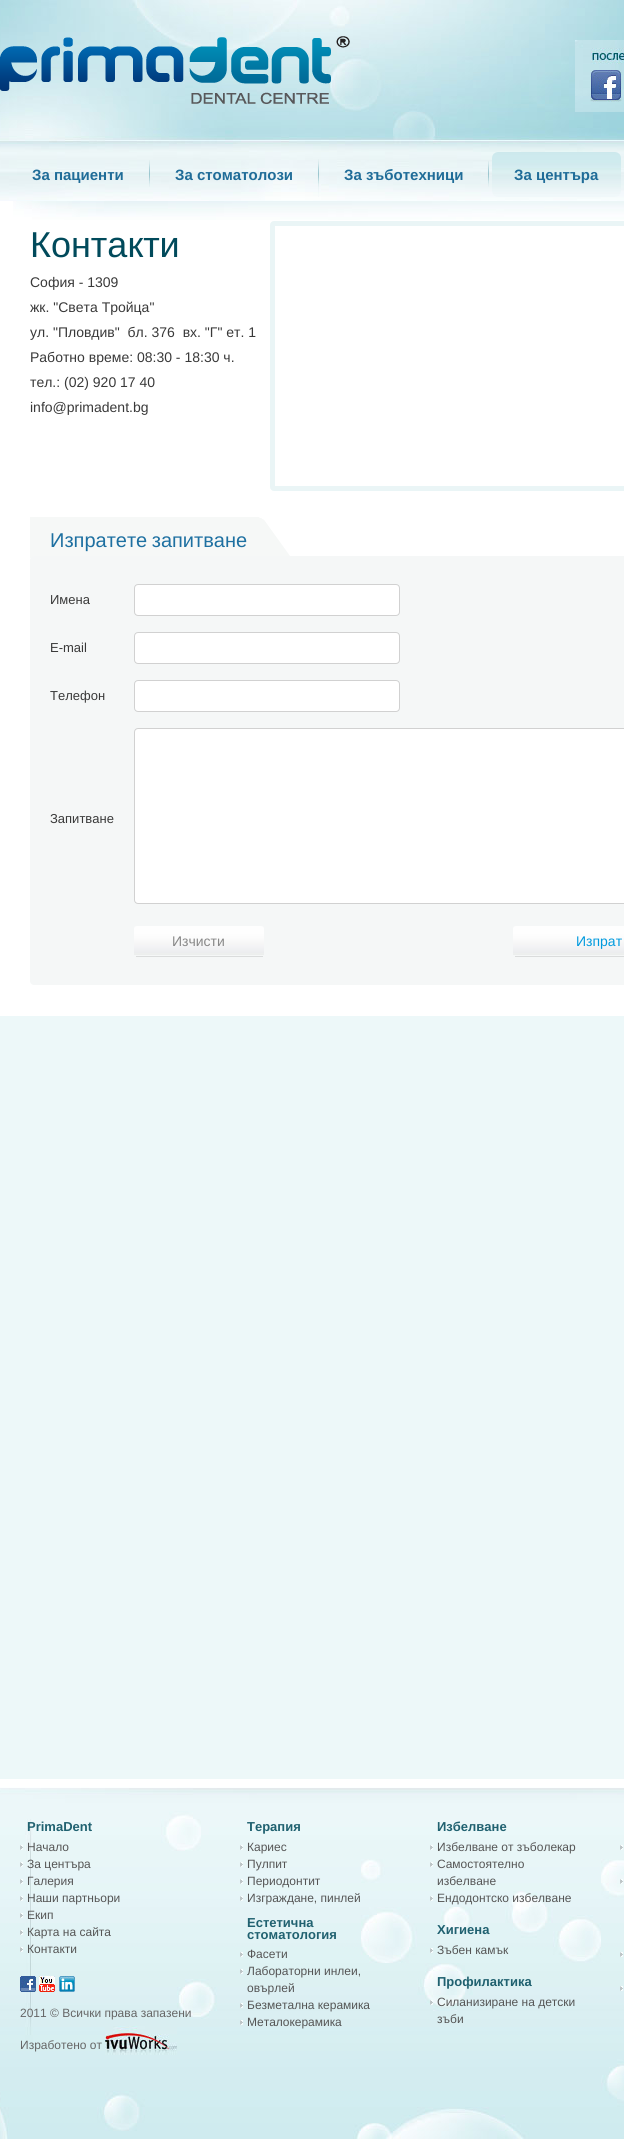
import math
import cairo



def draw_spaced(context, x, y, s, letter, word):
    context.move_to(x, y)
    for ch in s:
        context.show_text(ch)
        context.rel_move_to(letter + word * (ch == ' '), 0)


def rounded_rect(context, x, y, w, h, r):
    context.new_sub_path()
    for i, (u, v) in enumerate([(x + w - r, y + h - r), (x + r, y + h - r), (x + r, y + r), (x + w - r, y + r)]):
        context.arc(u, v, r, i * math.pi / 2, (i + 1) * math.pi / 2)
    context.close_path()


def draw_image(context, path, x, y, w, h):
    context.save()
    context.set_source_surface(cairo.ImageSurface.create_from_png(path), x, y)
    context.rectangle(x, y, w, h)
    context.fill()
    context.restore()


def draw(context):
    context.set_source_rgb(237 / 255, 248 / 255, 249 / 255)
    context.paint()
    draw_image(context, "images/1.png", 0, 0, 624, 201)
    draw_image(context, "images/2.png", 0, 36, 350, 68)
    draw_image(context, "images/3.png", 575, 40, 49, 72)
    draw_image(context, "images/4.png", 590, 70, 32, 32)
    draw_image(context, "images/5.png", 149, 160, 1, 27)
    draw_image(context, "images/6.png", 318, 159, 1, 38)
    draw_image(context, "images/7.png", 488, 161, 1, 26)
    draw_image(context, "images/8.png", 492, 152, 129, 45)
    context.set_source_rgb(1, 1, 1)
    context.rectangle(0, 201, 624, 815)
    context.fill()
    draw_image(context, "images/9.png", 13, 201, 611, 19)
    rounded_rect(context, 272.5, 223.5, 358, 265, 1.5)
    context.set_source_rgb(234 / 255, 245 / 255, 246 / 255)
    context.set_line_width(5)
    context.stroke()
    context.set_source_rgb(246 / 255, 248 / 255, 247 / 255)
    context.rectangle(30, 517, 229, 41)
    context.fill()
    draw_image(context, "images/10.png", 259, 517, 33, 39)
    context.set_source_rgb(245 / 255, 247 / 255, 247 / 255)
    rounded_rect(context, 30, 556, 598, 429, 4)
    context.fill()
    context.set_source_rgb(1, 1, 1)
    rounded_rect(context, 134.5, 584.5, 265, 31, 3.5)
    context.fill_preserve()
    context.set_source_rgb(209 / 255, 209 / 255, 209 / 255)
    context.set_line_width(1)
    context.stroke()
    context.set_source_rgb(1, 1, 1)
    rounded_rect(context, 134.5, 632.5, 265, 31, 3.5)
    context.fill_preserve()
    context.set_source_rgb(209 / 255, 209 / 255, 209 / 255)
    context.stroke()
    context.set_source_rgb(1, 1, 1)
    rounded_rect(context, 134.5, 680.5, 265, 31, 3.5)
    context.fill_preserve()
    context.set_source_rgb(209 / 255, 209 / 255, 209 / 255)
    context.stroke()
    context.set_source_rgb(1, 1, 1)
    rounded_rect(context, 134.5, 728.5, 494, 175, 3.5)
    context.fill_preserve()
    context.set_source_rgb(209 / 255, 209 / 255, 209 / 255)
    context.stroke()
    draw_image(context, "images/11.png", 134, 926, 130, 29)
    context.set_source_rgb(218 / 255, 220 / 255, 220 / 255)
    context.rectangle(136, 956, 127, 1)
    context.fill()
    draw_image(context, "images/12.png", 513, 926, 111, 29)
    context.rectangle(515, 956, 109, 1)
    context.fill()
    draw_image(context, "images/13.png", 0, 1779, 624, 360)
    draw_image(context, "images/14.png", 20, 1845, 3, 5)
    draw_image(context, "images/14.png", 20, 1862, 3, 5)
    draw_image(context, "images/14.png", 20, 1879, 3, 5)
    draw_image(context, "images/14.png", 20, 1896, 3, 5)
    draw_image(context, "images/14.png", 20, 1913, 3, 5)
    draw_image(context, "images/14.png", 20, 1930, 3, 5)
    draw_image(context, "images/14.png", 20, 1947, 3, 5)
    draw_image(context, "images/15.png", 20, 1976, 16, 16)
    draw_image(context, "images/16.png", 39, 1976, 16, 16)
    draw_image(context, "images/17.png", 59, 1976, 16, 16)
    draw_image(context, "images/18.png", 105, 2026, 72, 29)
    draw_image(context, "images/14.png", 240, 1845, 3, 5)
    draw_image(context, "images/14.png", 240, 1862, 3, 5)
    draw_image(context, "images/14.png", 240, 1879, 3, 5)
    draw_image(context, "images/14.png", 240, 1896, 3, 5)
    draw_image(context, "images/14.png", 240, 1952, 3, 5)
    draw_image(context, "images/14.png", 240, 1969, 3, 5)
    draw_image(context, "images/14.png", 240, 2003, 3, 5)
    draw_image(context, "images/14.png", 240, 2020, 3, 5)
    draw_image(context, "images/14.png", 430, 1845, 3, 5)
    draw_image(context, "images/14.png", 430, 1862, 3, 5)
    draw_image(context, "images/14.png", 430, 1896, 3, 5)
    draw_image(context, "images/14.png", 430, 1948, 3, 5)
    draw_image(context, "images/14.png", 430, 2000, 3, 5)
    draw_image(context, "images/14.png", 620, 1845, 3, 5)
    draw_image(context, "images/14.png", 620, 1879, 3, 5)
    draw_image(context, "images/14.png", 620, 1952, 3, 5)
    draw_image(context, "images/14.png", 620, 1986, 3, 5)
    context.select_font_face("Liberation Sans", cairo.FontSlant.NORMAL, cairo.FontWeight.BOLD)
    context.set_font_size(15)
    context.set_source_rgb(31 / 255, 108 / 255, 152 / 255)
    context.move_to(32, 180)
    context.show_text("За пациенти")
    context.move_to(175, 180)
    context.show_text("За стоматолози")
    context.move_to(344, 180)
    context.show_text("За зъботехници")
    context.move_to(514, 180)
    context.show_text("За центъра")
    context.select_font_face("Liberation Sans")
    context.set_font_size(36)
    context.set_source_rgb(1 / 255, 74 / 255, 91 / 255)
    context.move_to(30, 257)
    context.show_text("Контакти")
    context.set_font_size(14)
    context.set_source_rgb(57 / 255, 57 / 255, 57 / 255)
    context.move_to(30, 287)
    context.show_text("София - 1309")
    context.move_to(30, 312)
    context.show_text("жк. \"Света Тройца\"")
    context.move_to(30, 337)
    context.show_text("ул. \"Пловдив\"  бл. 376  вх. \"Г\" ет. 1")
    context.move_to(30, 362)
    context.show_text("Работно време: 08:30 - 18:30 ч.")
    context.move_to(30, 387)
    context.show_text("тел.: (02) 920 17 40")
    context.move_to(30, 412)
    context.show_text("info@primadent.bg")
    context.set_font_size(20)
    context.set_source_rgb(30 / 255, 112 / 255, 161 / 255)
    draw_spaced(context, 50, 547, "Изпратете запитване", 0, -1)
    context.set_font_size(13)
    context.set_source_rgb(57 / 255, 57 / 255, 57 / 255)
    context.move_to(50, 604)
    context.show_text("Имена")
    context.move_to(50, 652)
    context.show_text("E-mail")
    context.move_to(50, 700)
    context.show_text("Телефон")
    context.move_to(50, 823)
    context.show_text("Запитване")
    context.set_font_size(14)
    context.set_source_rgb(136 / 255, 136 / 255, 136 / 255)
    context.move_to(172, 946)
    context.show_text("Изчисти")
    context.set_source_rgb(0, 154 / 255, 222 / 255)
    context.move_to(576, 946)
    context.show_text("Изпрат")
    context.select_font_face("Liberation Sans", cairo.FontSlant.NORMAL, cairo.FontWeight.BOLD)
    context.set_font_size(13)
    context.set_source_rgb(32 / 255, 97 / 255, 112 / 255)
    context.move_to(27, 1831)
    context.show_text("PrimaDent")
    context.select_font_face("Liberation Sans")
    context.set_font_size(12)
    context.set_source_rgb(85 / 255, 85 / 255, 85 / 255)
    context.move_to(27, 1851)
    context.show_text("Начало")
    context.move_to(27, 1868)
    context.show_text("За центъра")
    context.move_to(27, 1885)
    context.show_text("Галерия")
    context.move_to(27, 1902)
    context.show_text("Наши партньори")
    context.move_to(27, 1919)
    context.show_text("Екип")
    context.move_to(27, 1936)
    context.show_text("Карта на сайта")
    context.move_to(27, 1953)
    context.show_text("Контакти")
    context.set_source_rgb(102 / 255, 102 / 255, 102 / 255)
    context.move_to(20, 2017)
    context.show_text("2011 © Всички права запазени")
    context.move_to(20, 2049)
    context.show_text("Изработено от")
    context.select_font_face("Liberation Sans", cairo.FontSlant.NORMAL, cairo.FontWeight.BOLD)
    context.set_font_size(13)
    context.set_source_rgb(32 / 255, 97 / 255, 112 / 255)
    context.move_to(247, 1831)
    context.show_text("Терапия")
    context.select_font_face("Liberation Sans")
    context.set_font_size(12)
    context.set_source_rgb(85 / 255, 85 / 255, 85 / 255)
    context.move_to(247, 1851)
    context.show_text("Кариес")
    context.move_to(247, 1868)
    context.show_text("Пулпит")
    context.move_to(247, 1885)
    context.show_text("Периодонтит")
    context.move_to(247, 1902)
    context.show_text("Изграждане, пинлей")
    context.select_font_face("Liberation Sans", cairo.FontSlant.NORMAL, cairo.FontWeight.BOLD)
    context.set_font_size(13)
    context.set_source_rgb(32 / 255, 97 / 255, 112 / 255)
    context.move_to(247, 1927)
    context.show_text("Естетична")
    context.move_to(247, 1939)
    context.show_text("стоматология")
    context.select_font_face("Liberation Sans")
    context.set_font_size(12)
    context.set_source_rgb(85 / 255, 85 / 255, 85 / 255)
    context.move_to(247, 1958)
    context.show_text("Фасети")
    context.move_to(247, 1975)
    context.show_text("Лабораторни инлеи,")
    context.move_to(247, 1992)
    context.show_text("овърлей")
    context.move_to(247, 2009)
    context.show_text("Безметална керамика")
    context.move_to(247, 2026)
    context.show_text("Металокерамика")
    context.select_font_face("Liberation Sans", cairo.FontSlant.NORMAL, cairo.FontWeight.BOLD)
    context.set_font_size(13)
    context.set_source_rgb(32 / 255, 97 / 255, 112 / 255)
    context.move_to(437, 1831)
    context.show_text("Избелване")
    context.select_font_face("Liberation Sans")
    context.set_font_size(12)
    context.set_source_rgb(85 / 255, 85 / 255, 85 / 255)
    context.move_to(437, 1851)
    context.show_text("Избелване от зъболекар")
    context.move_to(437, 1868)
    context.show_text("Самостоятелно")
    context.move_to(437, 1885)
    context.show_text("избелване")
    context.move_to(437, 1902)
    context.show_text("Ендодонтско избелване")
    context.select_font_face("Liberation Sans", cairo.FontSlant.NORMAL, cairo.FontWeight.BOLD)
    context.set_font_size(13)
    context.set_source_rgb(32 / 255, 97 / 255, 112 / 255)
    context.move_to(437, 1934)
    context.show_text("Хигиена")
    context.select_font_face("Liberation Sans")
    context.set_font_size(12)
    context.set_source_rgb(85 / 255, 85 / 255, 85 / 255)
    context.move_to(437, 1954)
    context.show_text("Зъбен камък")
    context.select_font_face("Liberation Sans", cairo.FontSlant.NORMAL, cairo.FontWeight.BOLD)
    context.set_font_size(13)
    context.set_source_rgb(32 / 255, 97 / 255, 112 / 255)
    context.move_to(437, 1986)
    context.show_text("Профилактика")
    context.select_font_face("Liberation Sans")
    context.set_font_size(12)
    context.set_source_rgb(85 / 255, 85 / 255, 85 / 255)
    context.move_to(437, 2006)
    context.show_text("Силанизиране на детски")
    context.move_to(437, 2023)
    context.show_text("зъби")


surface = cairo.ImageSurface(cairo.Format.RGB24, 624, 2139)
context = cairo.Context(surface)
options = cairo.FontOptions()
options.set_hint_metrics(cairo.HintMetrics.OFF)
options.set_hint_style(cairo.HintStyle.NONE)
context.set_font_options(options)
context.set_miter_limit(4)
draw(context)
surface.write_to_png("out.png")
